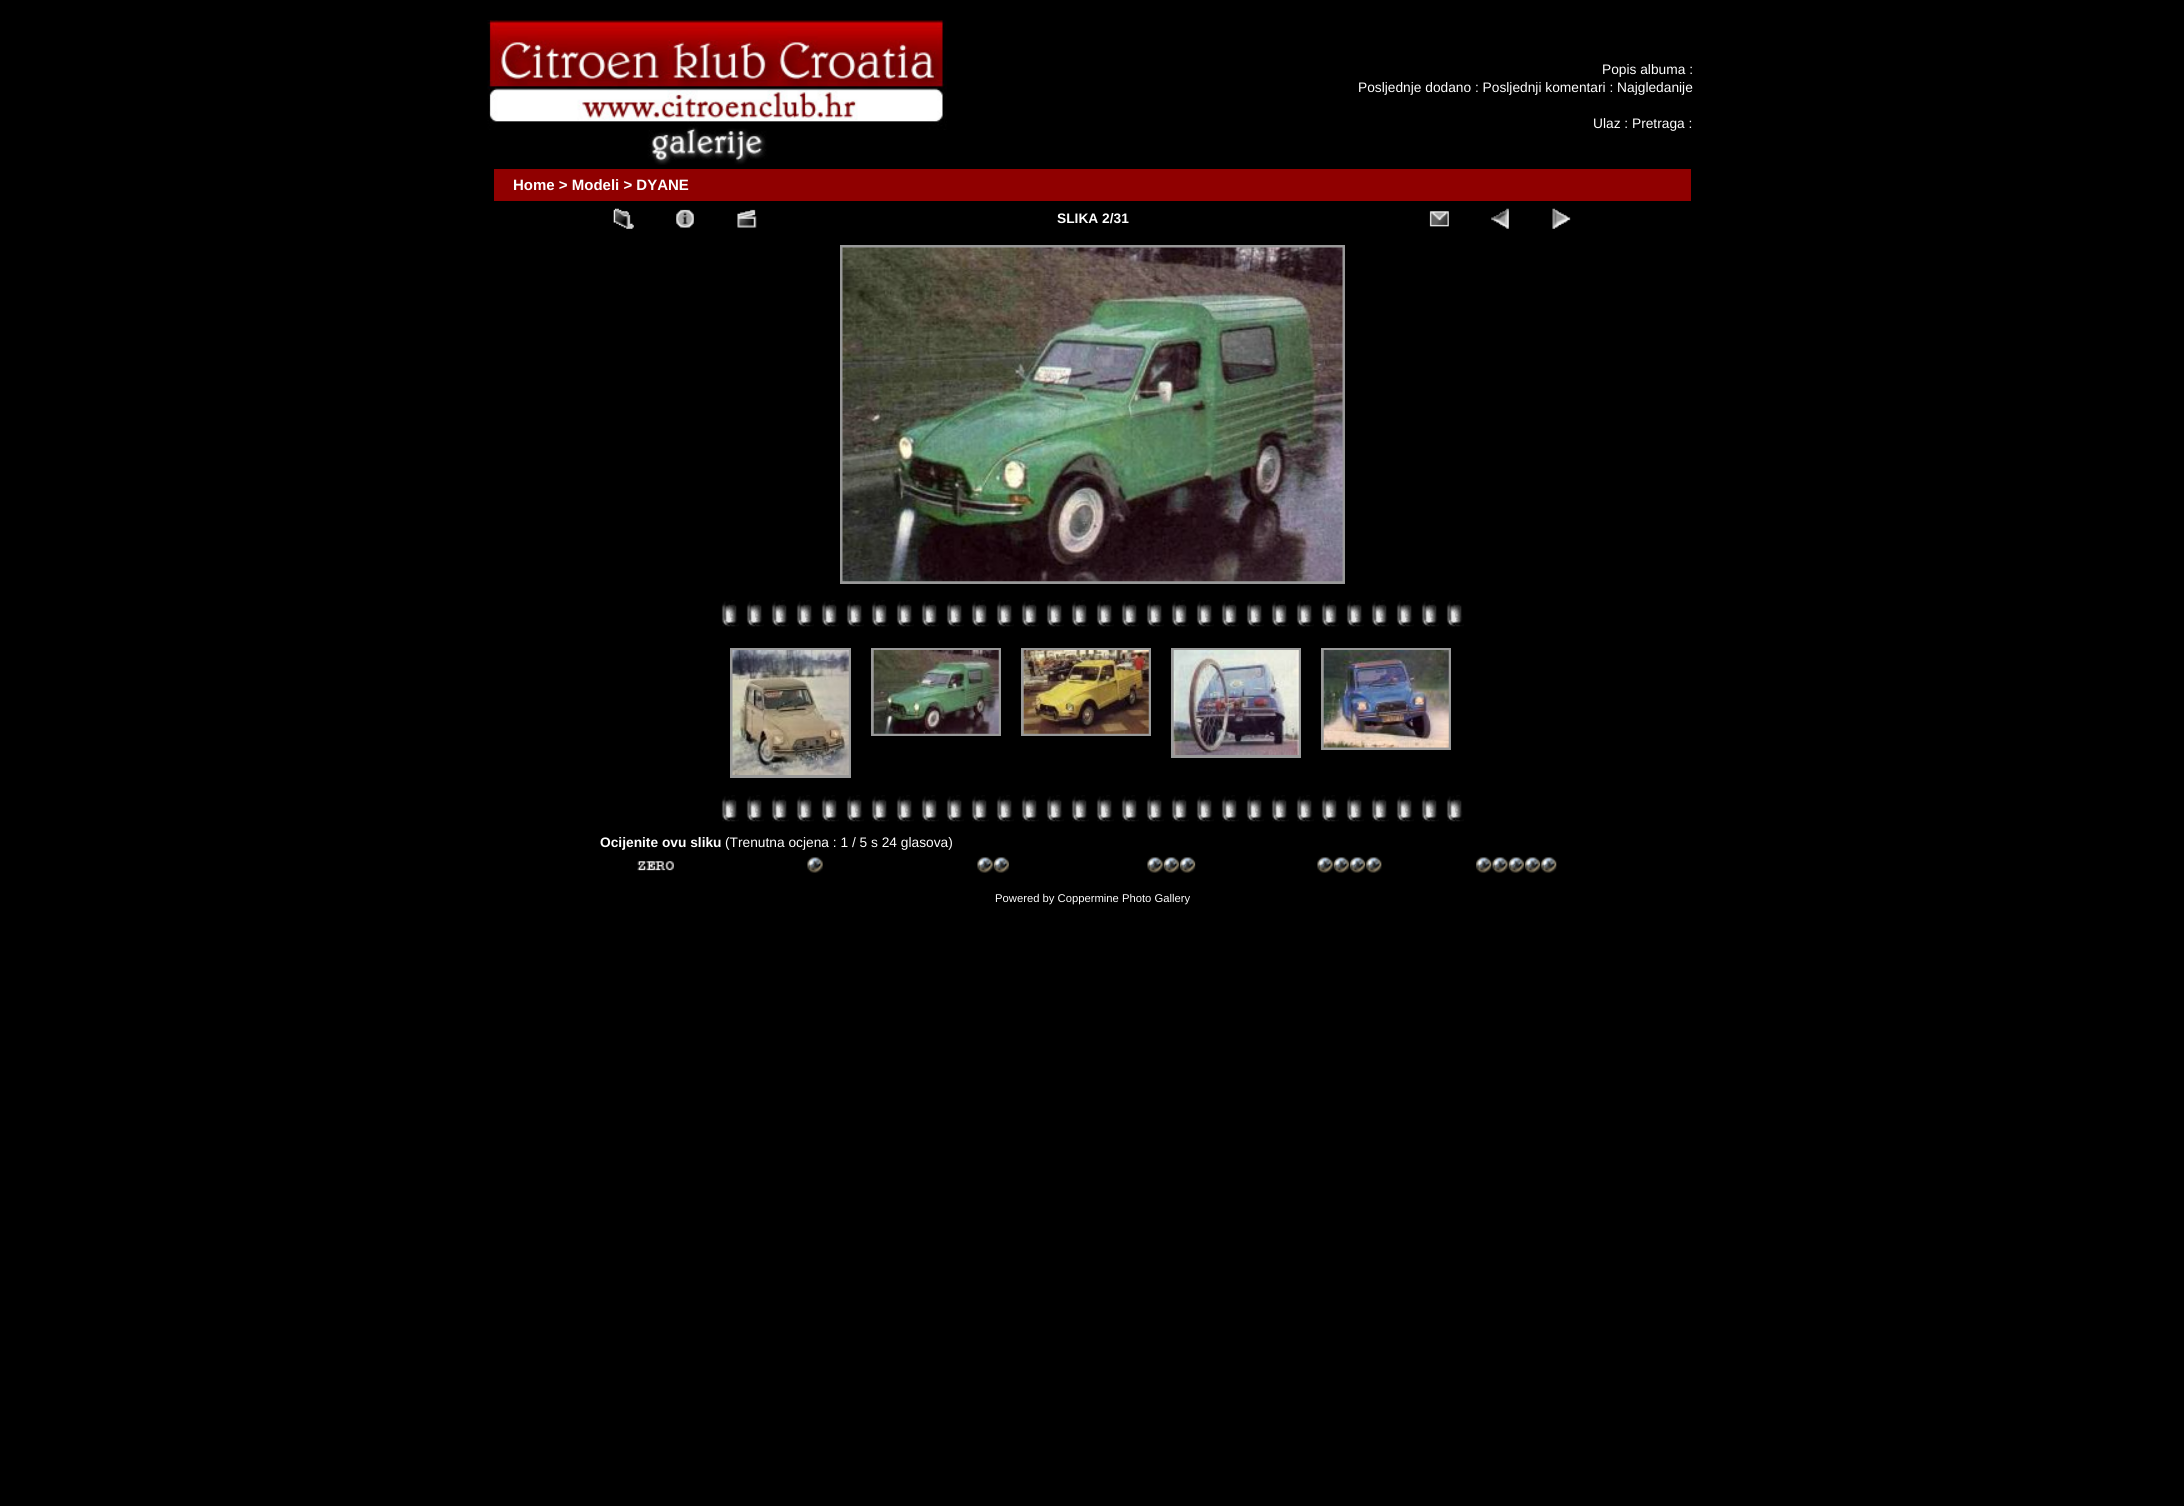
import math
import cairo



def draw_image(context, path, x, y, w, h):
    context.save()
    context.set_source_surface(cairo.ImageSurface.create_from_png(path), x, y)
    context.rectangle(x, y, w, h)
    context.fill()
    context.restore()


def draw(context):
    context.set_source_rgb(0, 0, 0)
    context.paint()
    draw_image(context, "images/1.png", 487, 20, 460, 145)
    context.set_source_rgb(144 / 255, 0, 0)
    context.rectangle(494, 169, 1197, 32)
    context.fill()
    draw_image(context, "images/2.png", 613, 208, 21, 21)
    draw_image(context, "images/3.png", 676, 209, 18, 19)
    draw_image(context, "images/4.png", 737, 209, 20, 19)
    draw_image(context, "images/5.png", 1429, 211, 20, 16)
    draw_image(context, "images/6.png", 1491, 208, 18, 21)
    draw_image(context, "images/7.png", 1552, 208, 19, 21)
    context.rectangle(841.5, 246.5, 502, 336)
    context.set_source_rgb(153 / 255, 153 / 255, 153 / 255)
    context.set_line_width(3)
    context.stroke()
    draw_image(context, "images/8.png", 842, 247, 501, 335)
    draw_image(context, "images/9.png", 721, 600, 743, 27)
    context.rectangle(731.5, 649.5, 118, 127)
    context.stroke()
    context.rectangle(872.5, 649.5, 127, 85)
    context.stroke()
    context.rectangle(1022.5, 649.5, 127, 85)
    context.stroke()
    context.rectangle(1172.5, 649.5, 127, 107)
    context.stroke()
    context.rectangle(1322.5, 649.5, 127, 99)
    context.stroke()
    draw_image(context, "images/10.png", 732, 650, 117, 125)
    draw_image(context, "images/11.png", 873, 650, 126, 84)
    draw_image(context, "images/12.png", 1023, 650, 126, 84)
    draw_image(context, "images/13.png", 1173, 650, 126, 105)
    draw_image(context, "images/14.png", 1323, 650, 126, 98)
    draw_image(context, "images/9.png", 721, 795, 743, 27)
    draw_image(context, "images/15.png", 637, 861, 37, 10)
    draw_image(context, "images/16.png", 807, 857, 16, 16)
    draw_image(context, "images/17.png", 977, 857, 32, 16)
    draw_image(context, "images/18.png", 1147, 857, 49, 16)
    draw_image(context, "images/19.png", 1317, 857, 65, 16)
    draw_image(context, "images/20.png", 1476, 857, 81, 16)
    context.select_font_face("Liberation Sans")
    context.set_font_size(13.75)
    context.set_source_rgb(1, 1, 1)
    context.move_to(1602, 74)
    context.show_text("Popis albuma :")
    context.move_to(1358, 92)
    context.show_text("Posljednje dodano : Posljednji komentari : Najgledanije")
    context.move_to(1593, 128)
    context.show_text("Ulaz : Pretraga :")
    context.select_font_face("Liberation Sans", cairo.FontSlant.NORMAL, cairo.FontWeight.BOLD)
    context.set_font_size(15)
    context.move_to(513, 190)
    context.show_text("Home > Modeli > DYANE")
    context.set_font_size(13.75)
    context.move_to(1057, 223)
    context.show_text("SLIKA 2/31")
    context.move_to(600, 847)
    context.show_text("Ocijenite ovu sliku")
    context.select_font_face("Liberation Sans")
    context.move_to(725, 847)
    context.show_text("(Trenutna ocjena : 1 / 5 s 24 glasova)")
    context.set_font_size(11.25)
    context.move_to(995, 902)
    context.show_text("Powered by Coppermine Photo Gallery")


surface = cairo.ImageSurface(cairo.Format.RGB24, 2184, 1506)
context = cairo.Context(surface)
options = cairo.FontOptions()
options.set_hint_metrics(cairo.HintMetrics.OFF)
options.set_hint_style(cairo.HintStyle.NONE)
context.set_font_options(options)
context.set_miter_limit(4)
draw(context)
surface.write_to_png("out.png")
